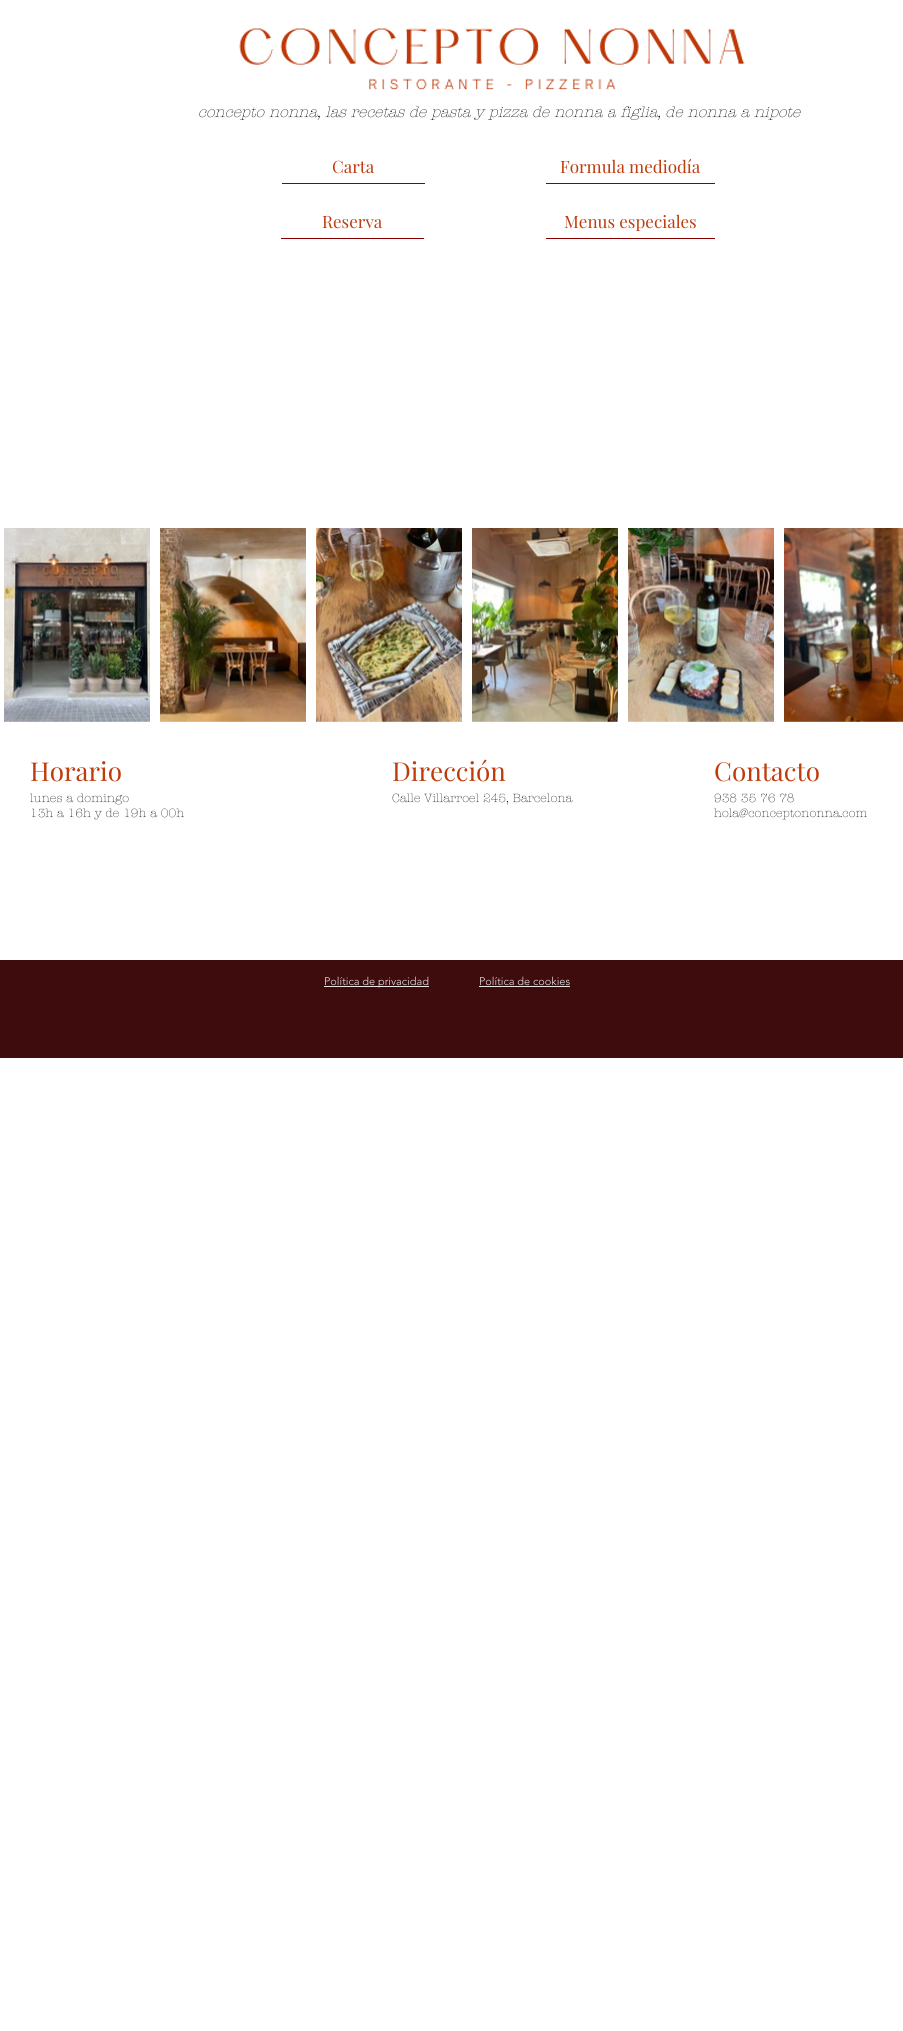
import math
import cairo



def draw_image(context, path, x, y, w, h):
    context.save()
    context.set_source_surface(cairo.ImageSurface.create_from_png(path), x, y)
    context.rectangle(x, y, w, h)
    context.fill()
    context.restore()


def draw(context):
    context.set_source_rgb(1, 1, 1)
    context.paint()
    draw_image(context, "images/1.png", 239, 28, 506, 62)
    context.set_source_rgb(139 / 255, 0, 0)
    context.rectangle(282, 183, 143, 1)
    context.fill()
    context.rectangle(546, 183, 169, 1)
    context.fill()
    context.rectangle(281, 238, 143, 1)
    context.fill()
    context.rectangle(546, 238, 169, 1)
    context.fill()
    draw_image(context, "images/2.png", 4, 528, 146, 194)
    draw_image(context, "images/3.png", 160, 528, 146, 194)
    draw_image(context, "images/4.png", 316, 528, 146, 194)
    draw_image(context, "images/5.png", 472, 528, 146, 194)
    draw_image(context, "images/6.png", 628, 528, 146, 194)
    draw_image(context, "images/7.png", 784, 528, 119, 194)
    context.set_source_rgb(62 / 255, 12 / 255, 12 / 255)
    context.rectangle(0, 960, 903, 98)
    context.fill()
    context.set_source_rgb(232 / 255, 230 / 255, 230 / 255)
    context.rectangle(324, 986, 105, 1)
    context.fill()
    context.rectangle(479, 986, 91, 1)
    context.fill()
    context.select_font_face("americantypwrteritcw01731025 Light", cairo.FontSlant.ITALIC)
    context.set_font_size(15)
    context.set_source_rgb(0, 0, 0)
    context.move_to(198, 117)
    context.show_text("concepto nonna, las recetas de pasta y pizza de nonna a figlia, de nonna a nipote")
    context.select_font_face("Playfair Display")
    context.set_font_size(17)
    context.set_source_rgb(191 / 255, 59 / 255, 11 / 255)
    context.move_to(332, 173)
    context.show_text("Carta")
    context.move_to(560, 173)
    context.show_text("Formula mediodía")
    context.move_to(322, 228)
    context.show_text("Reserva")
    context.move_to(564, 228)
    context.show_text("Menus especiales")
    context.set_font_size(26)
    context.move_to(30, 781)
    context.show_text("Horario")
    context.select_font_face("americantypwrteritcw01731025 Light")
    context.set_font_size(12)
    context.set_source_rgb(0, 0, 0)
    context.move_to(30, 802)
    context.show_text("lunes a domingo")
    context.move_to(30, 817)
    context.show_text("13h a 16h y de 19h a 00h")
    context.select_font_face("Playfair Display")
    context.set_font_size(26)
    context.set_source_rgb(191 / 255, 59 / 255, 11 / 255)
    context.move_to(392, 781)
    context.show_text("Dirección")
    context.select_font_face("americantypwrteritcw01731025 Light")
    context.set_font_size(12)
    context.set_source_rgb(0, 0, 0)
    context.move_to(392, 802)
    context.show_text("Calle Villarroel 245, Barcelona")
    context.select_font_face("Playfair Display")
    context.set_font_size(26)
    context.set_source_rgb(191 / 255, 59 / 255, 11 / 255)
    context.move_to(714, 781)
    context.show_text("Contacto")
    context.select_font_face("americantypwrteritcw01731025 Light")
    context.set_font_size(12)
    context.set_source_rgb(0, 0, 0)
    context.move_to(714, 802)
    context.show_text("938 35 76 78")
    context.move_to(714, 817)
    context.show_text("hola@conceptononna.com")
    context.select_font_face("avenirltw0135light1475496 Light")
    context.set_font_size(11)
    context.set_source_rgb(232 / 255, 230 / 255, 230 / 255)
    context.move_to(324, 985)
    context.show_text("Política de privacidad")
    context.move_to(479, 985)
    context.show_text("Política de cookies")


surface = cairo.ImageSurface(cairo.Format.RGB24, 903, 2031)
context = cairo.Context(surface)
options = cairo.FontOptions()
options.set_hint_metrics(cairo.HintMetrics.OFF)
options.set_hint_style(cairo.HintStyle.NONE)
context.set_font_options(options)
context.set_miter_limit(4)
draw(context)
surface.write_to_png("out.png")
